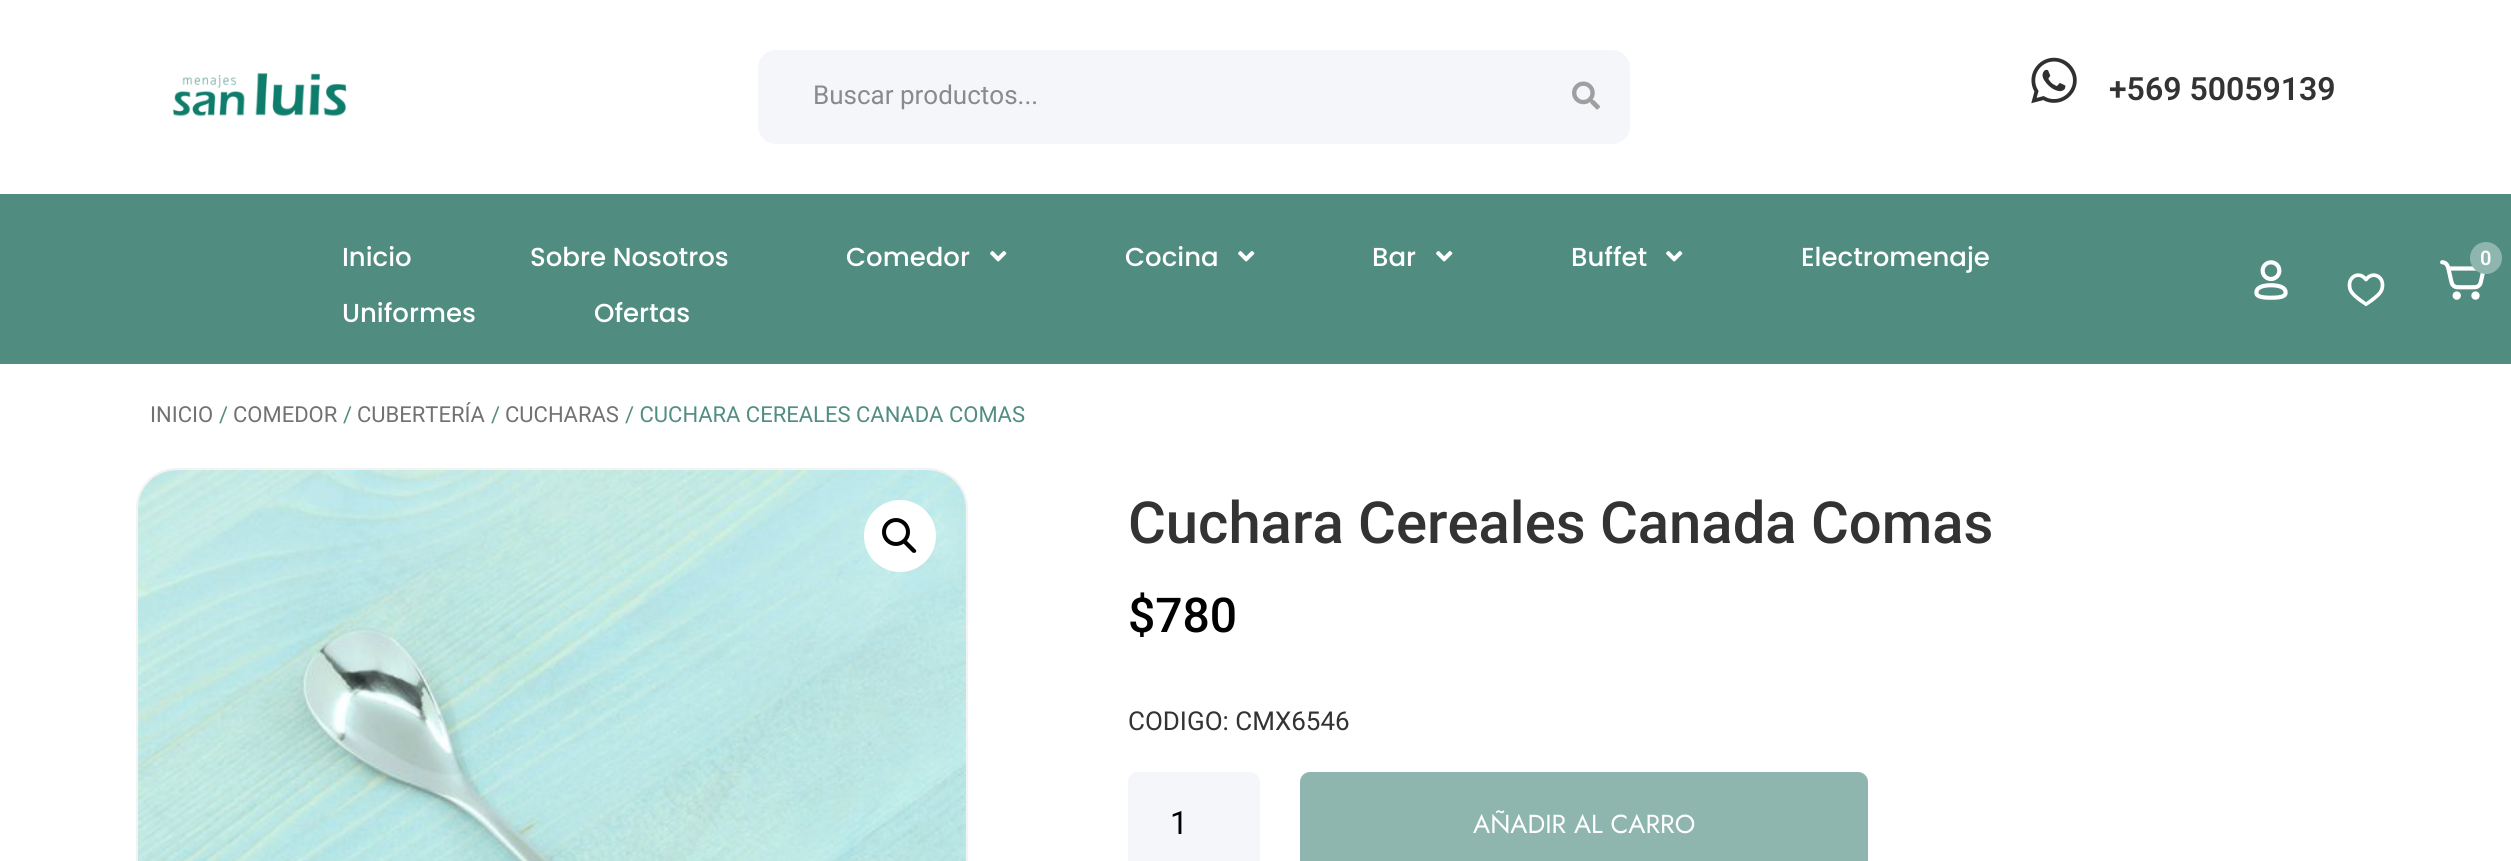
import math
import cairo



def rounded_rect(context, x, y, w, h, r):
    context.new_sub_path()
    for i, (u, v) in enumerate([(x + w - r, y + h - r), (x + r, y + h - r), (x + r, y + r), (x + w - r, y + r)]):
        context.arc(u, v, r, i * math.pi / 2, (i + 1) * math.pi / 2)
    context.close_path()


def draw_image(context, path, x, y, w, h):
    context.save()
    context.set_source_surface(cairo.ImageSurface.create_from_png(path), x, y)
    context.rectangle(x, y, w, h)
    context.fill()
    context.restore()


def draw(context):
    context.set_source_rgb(1, 1, 1)
    context.paint()
    draw_image(context, "images/1.png", 173, 72, 174, 45)
    context.set_source_rgb(245 / 255, 246 / 255, 250 / 255)
    rounded_rect(context, 758, 50, 872, 94, 18)
    context.fill()
    draw_image(context, "images/2.png", 1572, 81, 28, 29)
    draw_image(context, "images/3.png", 2031, 57, 46, 47)
    context.set_source_rgb(80 / 255, 141 / 255, 128 / 255)
    context.rectangle(0, 194, 2511, 170)
    context.fill()
    draw_image(context, "images/4.png", 990, 251, 17, 11)
    draw_image(context, "images/4.png", 1238, 251, 17, 11)
    draw_image(context, "images/4.png", 1436, 251, 17, 11)
    draw_image(context, "images/4.png", 1666, 251, 17, 11)
    draw_image(context, "images/5.png", 2440, 260, 45, 40)
    context.set_source_rgb(142 / 255, 182 / 255, 174 / 255)
    context.arc(2486, 258, 16, 0, 2 * math.pi)
    context.fill()
    draw_image(context, "images/6.png", 2254, 260, 34, 40)
    draw_image(context, "images/7.png", 2347, 273, 38, 34)
    rounded_rect(context, 137, 469, 830, 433, 39)
    context.set_source_rgb(243 / 255, 243 / 255, 243 / 255)
    context.stroke()
    draw_image(context, "images/8.png", 138, 470, 828, 391)
    context.set_source_rgb(1, 1, 1)
    context.arc(900, 536, 36, 0, 2 * math.pi)
    context.fill()
    context.arc(896, 532, 12, 0, 2 * math.pi)
    context.set_source_rgb(0, 0, 0)
    context.set_line_width(4)
    context.stroke()
    context.new_path()
    context.move_to(904, 541)
    context.curve_to(905, 540.5, 906, 540.5, 907, 541)
    context.line_to(915.5, 549.5)
    context.curve_to(916.5, 550.5, 916.5, 551.5, 915.5, 552.5)
    context.curve_to(914.5, 553, 913.5, 553, 912.5, 552.5)
    context.line_to(904, 544)
    context.curve_to(903.5, 543, 903.5, 542, 904, 541)
    context.close_path()
    context.fill()
    context.set_source_rgb(244 / 255, 246 / 255, 250 / 255)
    rounded_rect(context, 1128, 772, 132, 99, 10)
    context.fill()
    context.set_source_rgb(142 / 255, 182 / 255, 174 / 255)
    rounded_rect(context, 1300, 772, 568, 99, 10)
    context.fill()
    context.select_font_face("Roboto")
    context.set_font_size(26)
    context.set_source_rgb(138 / 255, 138 / 255, 138 / 255)
    context.move_to(813, 104)
    context.show_text("Buscar productos...")
    context.select_font_face("Roboto SemiBold")
    context.set_font_size(32)
    context.set_source_rgb(51 / 255, 51 / 255, 51 / 255)
    context.move_to(2109, 100)
    context.show_text("+569 50059139")
    context.select_font_face("Poppins Medium")
    context.set_font_size(26)
    context.set_source_rgb(1, 1, 1)
    context.move_to(342, 266)
    context.show_text("Inicio")
    context.move_to(530, 266)
    context.show_text("Sobre Nosotros")
    context.move_to(846, 266)
    context.show_text("Comedor")
    context.move_to(1125, 266)
    context.show_text("Cocina")
    context.move_to(1372, 266)
    context.show_text("Bar")
    context.move_to(1571, 266)
    context.show_text("Buffet")
    context.move_to(1801, 266)
    context.show_text("Electromenaje")
    context.move_to(342, 322)
    context.show_text("Uniformes")
    context.move_to(594, 322)
    context.show_text("Ofertas")
    context.select_font_face("Roboto SemiBold")
    context.set_font_size(20)
    context.move_to(2480, 265)
    context.show_text("0")
    context.select_font_face("Roboto")
    context.set_font_size(22)
    context.set_source_rgb(114 / 255, 114 / 255, 114 / 255)
    context.move_to(150, 422)
    context.show_text("INICIO")
    context.set_source_rgb(81 / 255, 141 / 255, 129 / 255)
    context.move_to(219, 422)
    context.show_text("/")
    context.set_source_rgb(114 / 255, 114 / 255, 114 / 255)
    context.move_to(233, 422)
    context.show_text("COMEDOR")
    context.set_source_rgb(81 / 255, 141 / 255, 129 / 255)
    context.move_to(343, 422)
    context.show_text("/")
    context.set_source_rgb(114 / 255, 114 / 255, 114 / 255)
    context.move_to(357, 422)
    context.show_text("CUBERTERÍA")
    context.set_source_rgb(81 / 255, 141 / 255, 129 / 255)
    context.move_to(491, 422)
    context.show_text("/")
    context.set_source_rgb(114 / 255, 114 / 255, 114 / 255)
    context.move_to(505, 422)
    context.show_text("CUCHARAS")
    context.set_source_rgb(81 / 255, 141 / 255, 129 / 255)
    context.move_to(625, 422)
    context.show_text("/ CUCHARA CEREALES CANADA COMAS")
    context.select_font_face("Roboto Medium")
    context.set_font_size(58)
    context.set_source_rgb(51 / 255, 51 / 255, 51 / 255)
    context.move_to(1128, 543)
    context.show_text("Cuchara Cereales Canada Comas")
    context.set_font_size(48)
    context.set_source_rgb(1 / 255, 1 / 255, 1 / 255)
    context.move_to(1128, 632)
    context.show_text("$780")
    context.select_font_face("Roboto")
    context.set_font_size(26)
    context.set_source_rgb(51 / 255, 51 / 255, 51 / 255)
    context.move_to(1128, 730)
    context.show_text("CODIGO: CMX6546")
    context.set_font_size(32)
    context.set_source_rgb(1 / 255, 1 / 255, 1 / 255)
    context.move_to(1170, 834)
    context.show_text("1")
    context.select_font_face("Jost")
    context.set_font_size(26)
    context.set_source_rgb(1, 1, 1)
    context.move_to(1473, 833)
    context.show_text("AÑADIR AL CARRO")


surface = cairo.ImageSurface(cairo.Format.RGB24, 2511, 861)
context = cairo.Context(surface)
options = cairo.FontOptions()
options.set_hint_metrics(cairo.HintMetrics.OFF)
options.set_hint_style(cairo.HintStyle.NONE)
context.set_font_options(options)
context.set_miter_limit(4)
draw(context)
surface.write_to_png("out.png")
